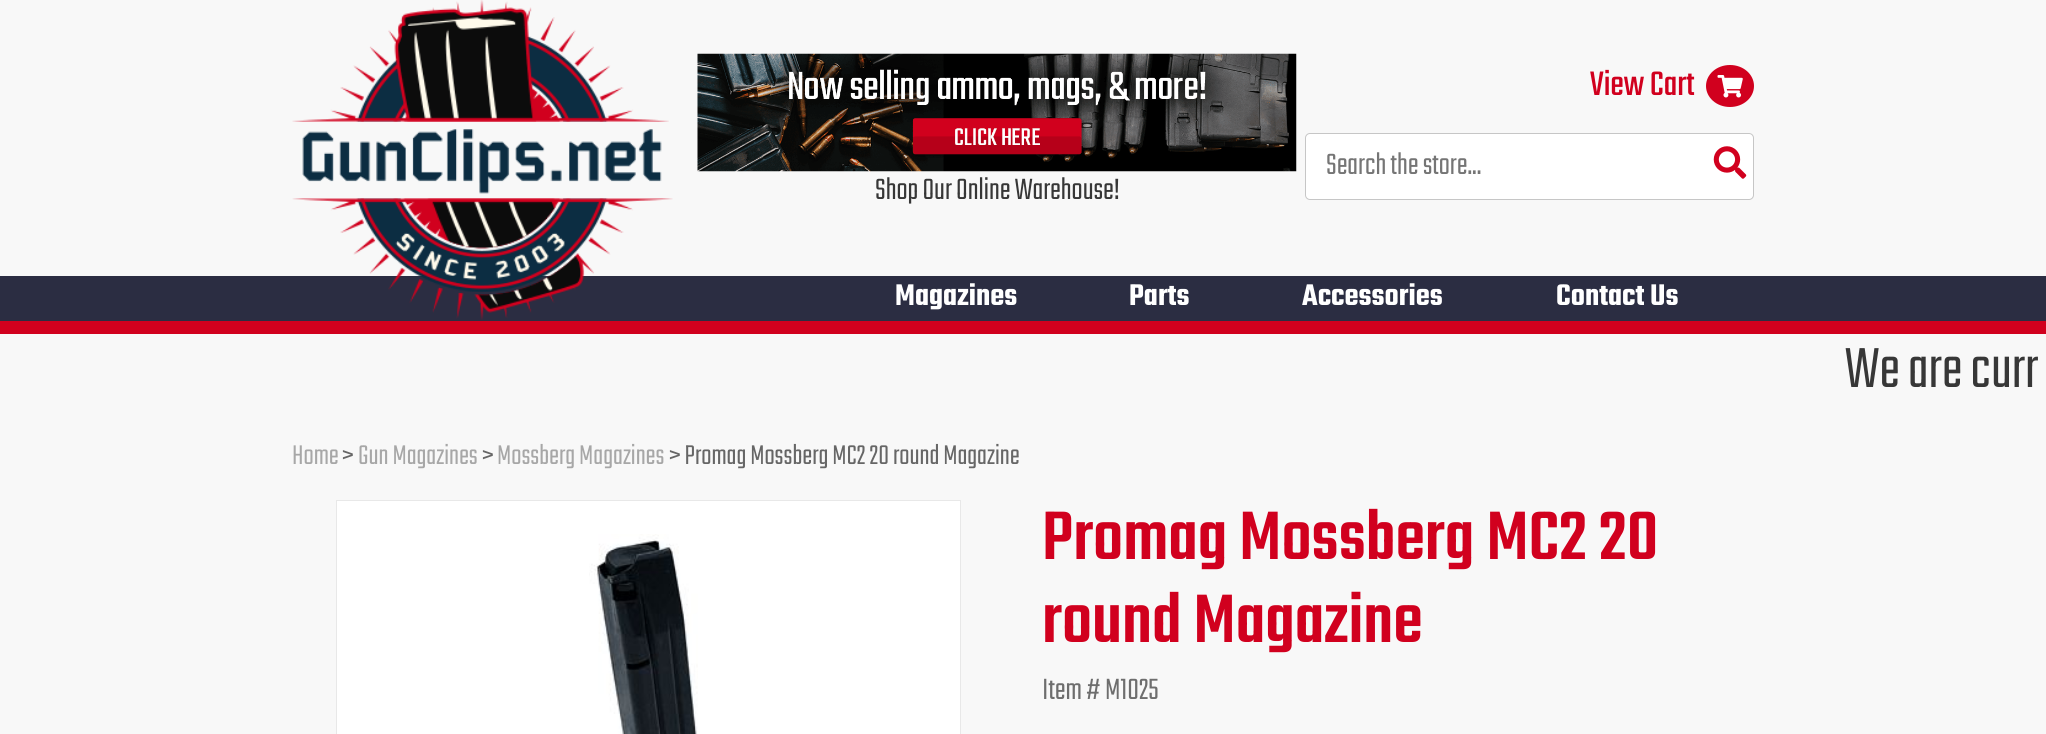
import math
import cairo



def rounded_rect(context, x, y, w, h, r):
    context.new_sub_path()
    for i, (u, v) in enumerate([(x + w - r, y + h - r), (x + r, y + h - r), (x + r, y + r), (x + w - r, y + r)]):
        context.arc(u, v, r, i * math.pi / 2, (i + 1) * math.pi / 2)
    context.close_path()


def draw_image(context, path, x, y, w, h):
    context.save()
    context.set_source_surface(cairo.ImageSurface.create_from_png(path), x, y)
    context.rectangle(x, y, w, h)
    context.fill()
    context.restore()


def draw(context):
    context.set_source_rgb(248 / 255, 248 / 255, 248 / 255)
    context.paint()
    context.set_source_rgb(43 / 255, 45 / 255, 66 / 255)
    context.rectangle(0, 276, 2046, 45)
    context.fill()
    draw_image(context, "images/1.png", 292, 0, 381, 320)
    context.set_source_rgb(209 / 255, 0, 30 / 255)
    context.new_path()
    context.move_to(1730, 65)
    context.curve_to(1743.5, 65, 1754, 74.5, 1754, 86)
    context.curve_to(1754, 97.5, 1743.5, 107, 1730, 107)
    context.curve_to(1716.5, 107, 1706, 97.5, 1706, 86)
    context.curve_to(1706, 74.5, 1716.5, 65, 1730, 65)
    context.close_path()
    context.fill()
    draw_image(context, "images/2.png", 1717, 75, 26, 23)
    context.set_source_rgb(1, 1, 1)
    rounded_rect(context, 1305.5, 133.5, 448, 66, 4.5)
    context.fill_preserve()
    context.set_source_rgb(198 / 255, 198 / 255, 198 / 255)
    context.set_line_width(1)
    context.stroke()
    draw_image(context, "images/3.png", 1713, 146, 34, 33)
    draw_image(context, "images/4.png", 697, 53, 600, 119)
    context.set_source_rgb(209 / 255, 0, 30 / 255)
    context.rectangle(0, 321, 2046, 13)
    context.fill()
    context.set_source_rgb(1, 1, 1)
    context.rectangle(336.5, 500.5, 624, 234)
    context.fill_preserve()
    context.set_source_rgb(232 / 255, 232 / 255, 232 / 255)
    context.stroke()
    draw_image(context, "images/5.png", 589, 534, 109, 200)
    context.select_font_face("Teko")
    context.set_font_size(37.5)
    context.set_source_rgb(209 / 255, 0, 30 / 255)
    context.move_to(1590, 95)
    context.show_text("View Cart")
    context.select_font_face("Teko Light")
    context.set_font_size(32.5)
    context.set_source_rgb(117 / 255, 117 / 255, 117 / 255)
    context.move_to(1326, 174)
    context.show_text("Search the store...")
    context.set_source_rgb(55 / 255, 55 / 255, 55 / 255)
    context.move_to(875, 199)
    context.show_text("Shop Our Online Warehouse!")
    context.select_font_face("Teko SemiBold")
    context.set_source_rgb(1, 1, 1)
    context.move_to(895, 305)
    context.show_text("Magazines")
    context.move_to(1129, 305)
    context.show_text("Parts")
    context.move_to(1302, 305)
    context.show_text("Accessories")
    context.move_to(1556, 305)
    context.show_text("Contact Us")
    context.select_font_face("Teko Light")
    context.set_font_size(62.5)
    context.set_source_rgb(55 / 255, 55 / 255, 55 / 255)
    context.move_to(1845, 387)
    context.show_text("We are curr")
    context.set_font_size(30)
    context.set_source_rgb(167 / 255, 167 / 255, 167 / 255)
    context.move_to(292, 464)
    context.show_text("Home")
    context.set_source_rgb(102 / 255, 102 / 255, 102 / 255)
    context.move_to(342, 464)
    context.show_text(">")
    context.set_source_rgb(167 / 255, 167 / 255, 167 / 255)
    context.move_to(358, 464)
    context.show_text("Gun Magazines")
    context.set_source_rgb(102 / 255, 102 / 255, 102 / 255)
    context.move_to(482, 464)
    context.show_text(">")
    context.set_source_rgb(167 / 255, 167 / 255, 167 / 255)
    context.move_to(497, 464)
    context.show_text("Mossberg Magazines")
    context.set_source_rgb(102 / 255, 102 / 255, 102 / 255)
    context.move_to(669, 464)
    context.show_text("> Promag Mossberg MC2 20 round Magazine")
    context.select_font_face("Teko Medium")
    context.set_font_size(75)
    context.set_source_rgb(209 / 255, 0, 30 / 255)
    context.move_to(1042, 559)
    context.show_text("Promag Mossberg MC2 20")
    context.move_to(1042, 642)
    context.show_text("round Magazine")
    context.select_font_face("Teko Light")
    context.set_font_size(32.5)
    context.set_source_rgb(110 / 255, 110 / 255, 110 / 255)
    context.move_to(1042, 699)
    context.show_text("Item # M1025")


surface = cairo.ImageSurface(cairo.Format.RGB24, 2046, 734)
context = cairo.Context(surface)
options = cairo.FontOptions()
options.set_hint_metrics(cairo.HintMetrics.OFF)
options.set_hint_style(cairo.HintStyle.NONE)
context.set_font_options(options)
context.set_miter_limit(4)
draw(context)
surface.write_to_png("out.png")
